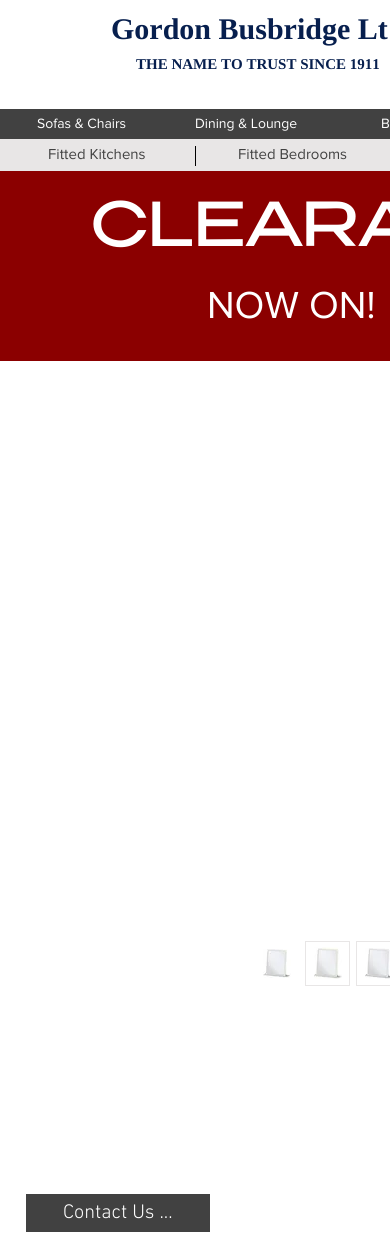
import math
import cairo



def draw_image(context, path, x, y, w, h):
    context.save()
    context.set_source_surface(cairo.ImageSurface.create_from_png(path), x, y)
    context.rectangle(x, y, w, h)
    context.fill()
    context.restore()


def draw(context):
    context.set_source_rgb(1, 1, 1)
    context.paint()
    context.set_source_rgb(65 / 255, 65 / 255, 65 / 255)
    context.rectangle(0, 109, 390, 30)
    context.fill()
    context.set_source_rgb(232 / 255, 230 / 255, 230 / 255)
    context.rectangle(0, 139, 390, 32)
    context.fill()
    context.set_source_rgb(0, 0, 0)
    context.rectangle(195, 146, 1, 20)
    context.fill()
    context.set_source_rgb(139 / 255, 0, 0)
    context.rectangle(0, 171, 390, 190)
    context.fill()
    draw_image(context, "images/1.png", 263, 949, 28, 29)
    context.rectangle(305.5, 941.5, 44, 44)
    context.set_source_rgb(232 / 255, 230 / 255, 230 / 255)
    context.set_line_width(1)
    context.stroke()
    draw_image(context, "images/2.png", 314, 947, 28, 32)
    context.rectangle(356.5, 941.5, 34, 44)
    context.stroke()
    draw_image(context, "images/3.png", 365, 948, 25, 31)
    context.set_source_rgb(65 / 255, 65 / 255, 65 / 255)
    context.rectangle(26, 1194, 184, 38)
    context.fill()
    context.select_font_face("Liberation Serif", cairo.FontSlant.NORMAL, cairo.FontWeight.BOLD)
    context.set_font_size(30)
    context.set_source_rgb(7 / 255, 31 / 255, 78 / 255)
    context.move_to(111, 39)
    context.show_text("Gordon Busbridge Lt")
    context.set_font_size(15)
    context.move_to(136, 69)
    context.show_text("THE NAME TO TRUST SINCE 1911")
    context.select_font_face("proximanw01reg")
    context.set_font_size(14)
    context.set_source_rgb(1, 1, 1)
    context.move_to(37, 128)
    context.show_text("Sofas & Chairs")
    context.move_to(195, 128)
    context.show_text("Dining & Lounge")
    context.move_to(381, 128)
    context.show_text("B")
    context.set_font_size(15)
    context.set_source_rgb(65 / 255, 65 / 255, 65 / 255)
    context.move_to(48, 159)
    context.show_text("Fitted Kitchens")
    context.move_to(238, 159)
    context.show_text("Fitted Bedrooms")
    context.select_font_face("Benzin")
    context.set_font_size(60)
    context.set_source_rgb(1, 1, 1)
    context.move_to(91, 246)
    context.show_text("CLEARA")
    context.select_font_face("proximanw01reg")
    context.set_font_size(39)
    context.move_to(207, 318)
    context.show_text("NOW ON!")
    context.select_font_face("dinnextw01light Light")
    context.set_font_size(20)
    context.move_to(63, 1218)
    context.show_text("Contact Us ...")


surface = cairo.ImageSurface(cairo.Format.RGB24, 390, 1233)
context = cairo.Context(surface)
options = cairo.FontOptions()
options.set_hint_metrics(cairo.HintMetrics.OFF)
options.set_hint_style(cairo.HintStyle.NONE)
context.set_font_options(options)
context.set_miter_limit(4)
draw(context)
surface.write_to_png("out.png")
